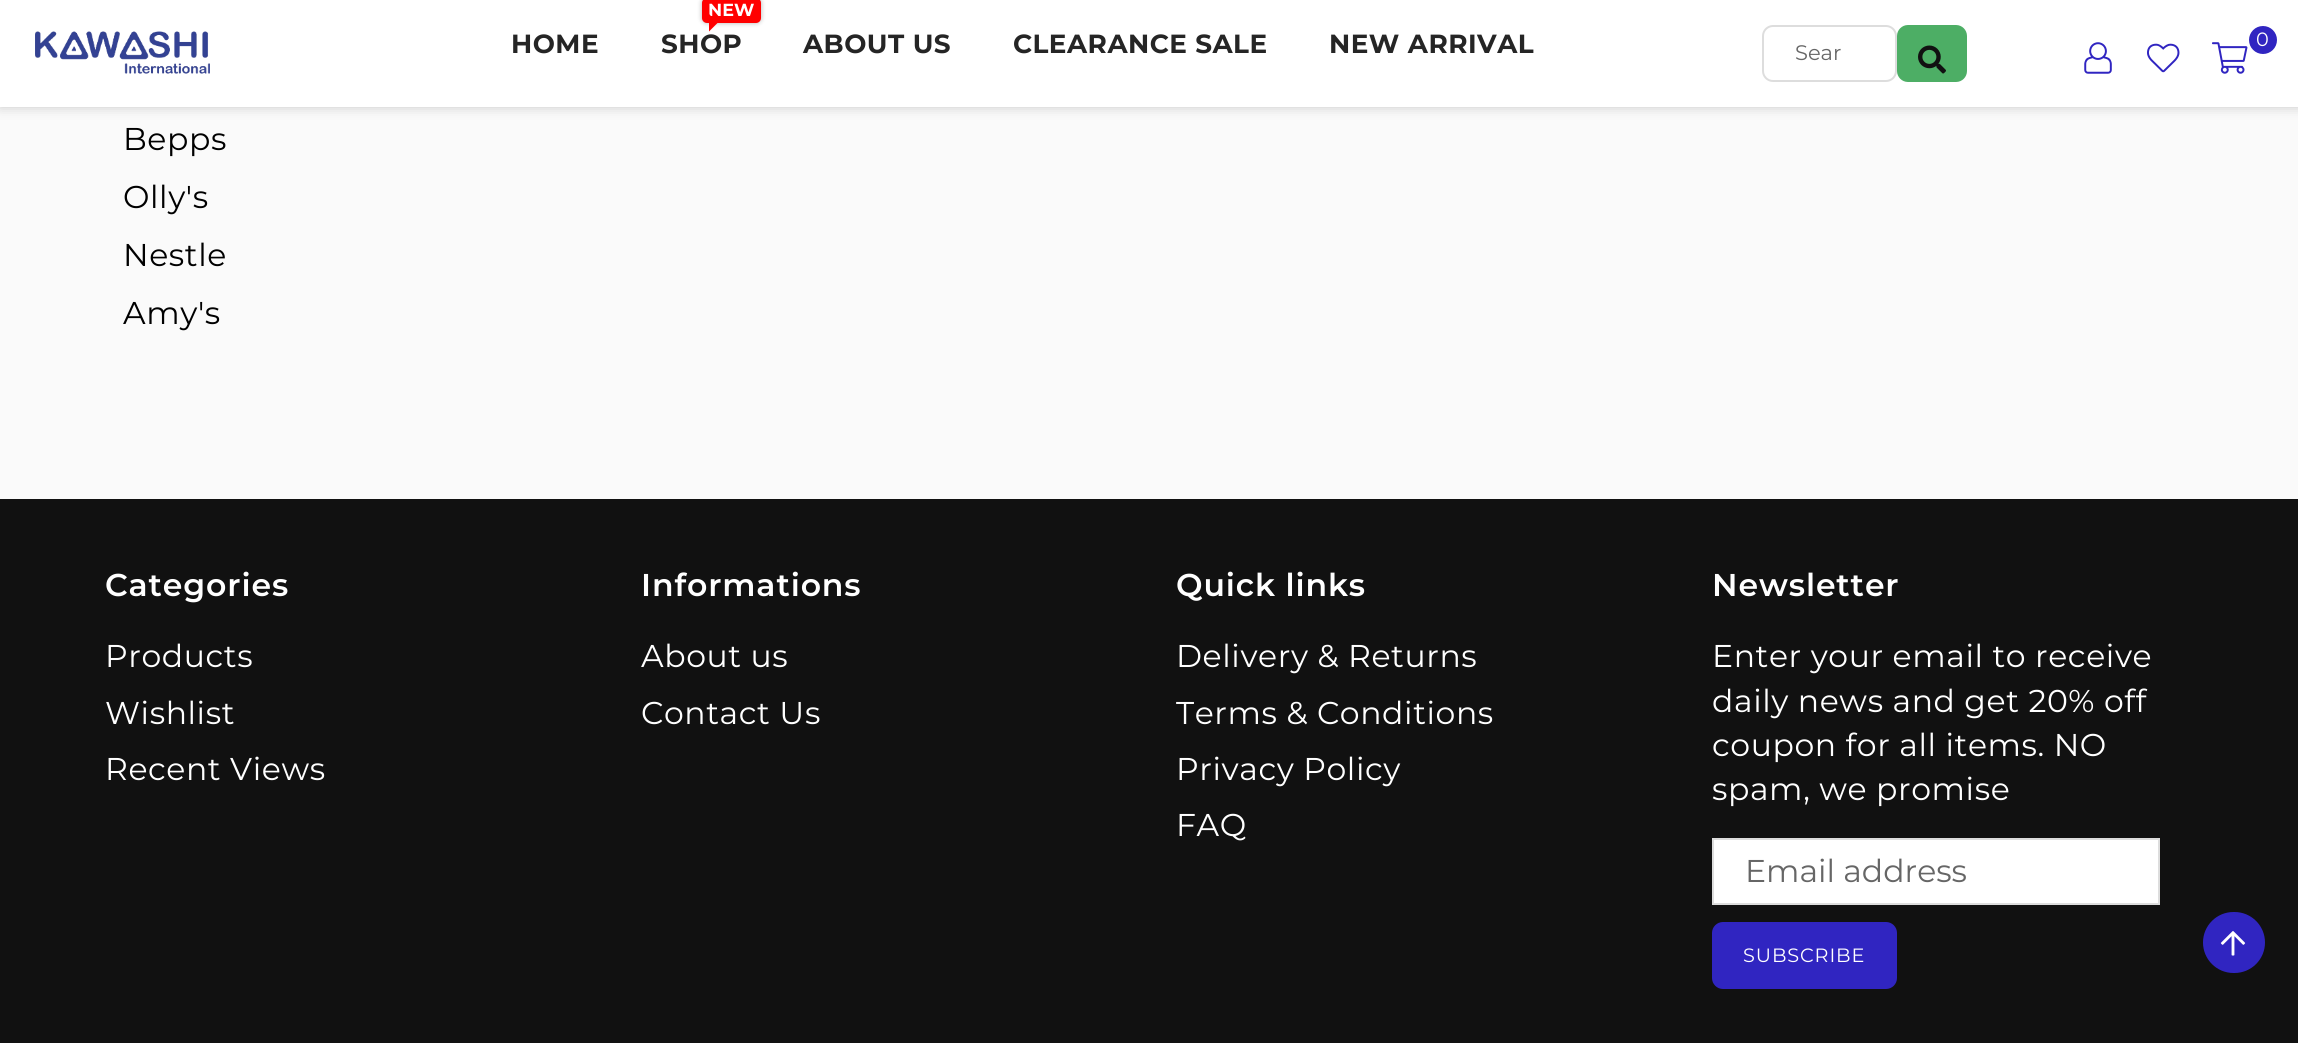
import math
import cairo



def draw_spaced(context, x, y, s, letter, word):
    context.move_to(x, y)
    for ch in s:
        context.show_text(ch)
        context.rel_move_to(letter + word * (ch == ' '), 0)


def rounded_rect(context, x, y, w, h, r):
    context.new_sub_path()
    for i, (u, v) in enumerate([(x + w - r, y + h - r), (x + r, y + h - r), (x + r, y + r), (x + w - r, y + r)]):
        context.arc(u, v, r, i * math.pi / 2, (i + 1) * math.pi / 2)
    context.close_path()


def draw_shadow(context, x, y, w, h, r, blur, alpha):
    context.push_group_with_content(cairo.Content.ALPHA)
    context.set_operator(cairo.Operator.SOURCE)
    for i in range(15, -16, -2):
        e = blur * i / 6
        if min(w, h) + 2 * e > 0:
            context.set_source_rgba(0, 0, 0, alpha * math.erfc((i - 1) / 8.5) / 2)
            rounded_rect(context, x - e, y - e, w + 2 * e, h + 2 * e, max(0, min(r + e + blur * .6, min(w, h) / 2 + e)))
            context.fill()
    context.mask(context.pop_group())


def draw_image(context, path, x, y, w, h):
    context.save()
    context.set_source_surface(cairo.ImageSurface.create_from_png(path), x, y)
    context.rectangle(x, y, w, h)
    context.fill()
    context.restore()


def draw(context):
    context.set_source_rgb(250 / 255, 250 / 255, 250 / 255)
    context.paint()
    context.set_source_rgb(0, 0, 0)
    draw_shadow(context, 0, 0, 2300, 107, 0, 6, 0.2)
    context.set_source_rgb(1, 1, 1)
    context.rectangle(0, 0, 2298, 107)
    context.fill()
    draw_image(context, "images/1.png", 35, 31, 175, 43)
    context.set_source_rgb(0, 0, 0)
    draw_shadow(context, 702, -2, 59, 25, 5, 2.5, 0.3)
    context.set_source_rgb(1, 0, 0)
    rounded_rect(context, 702, -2, 59, 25, 5)
    context.fill()
    context.set_source_rgb(48 / 255, 37 / 255, 193 / 255)
    context.arc(2263, 40, 14, 0, 2 * math.pi)
    context.fill()
    draw_image(context, "images/2.png", 2212, 42, 36, 32)
    draw_image(context, "images/3.png", 2084, 42, 28, 32)
    draw_image(context, "images/4.png", 2147, 43, 33, 30)
    rounded_rect(context, 1763, 26, 133, 55, 10)
    context.set_source_rgb(221 / 255, 221 / 255, 221 / 255)
    context.stroke()
    context.set_source_rgb(77 / 255, 174 / 255, 101 / 255)
    rounded_rect(context, 1899, 27, 66, 53, 9)
    context.fill_preserve()
    context.set_line_width(4)
    context.stroke()
    draw_image(context, "images/5.png", 1918, 45, 28, 29)
    context.set_source_rgb(17 / 255, 17 / 255, 17 / 255)
    context.rectangle(0, 499, 2298, 544)
    context.fill()
    context.set_source_rgb(1, 1, 1)
    context.rectangle(1713, 839, 446, 65)
    context.fill_preserve()
    context.set_source_rgb(221 / 255, 221 / 255, 221 / 255)
    context.set_line_width(2)
    context.stroke()
    context.set_source_rgb(48 / 255, 37 / 255, 193 / 255)
    rounded_rect(context, 1712, 922, 185, 67, 11)
    context.fill()
    rounded_rect(context, 2203, 912, 62, 61, 30.5)
    context.fill()
    draw_image(context, "images/6.png", 2220, 931, 26, 25)
    context.select_font_face("Montserrat", cairo.FontSlant.NORMAL, cairo.FontWeight.BOLD)
    context.set_font_size(26.25)
    context.set_source_rgb(37 / 255, 37 / 255, 37 / 255)
    draw_spaced(context, 511, 53, "HOME", 0.5, 0)
    context.set_font_size(17.5)
    context.set_source_rgb(1, 1, 1)
    context.move_to(708, 16)
    context.show_text("NEW")
    context.set_source_rgb(1, 0, 0)
    context.new_path()
    context.move_to(709, 31.5)
    context.line_to(709, 14)
    context.line_to(717.5, 23)
    context.close_path()
    context.fill()
    context.set_font_size(26.25)
    context.set_source_rgb(37 / 255, 37 / 255, 37 / 255)
    draw_spaced(context, 661, 53, "SHOP", 0.5, 0)
    draw_spaced(context, 803, 53, "ABOUT US", 0.5, 0)
    draw_spaced(context, 1013, 53, "CLEARANCE SALE", 0.5, 0)
    draw_spaced(context, 1329, 53, "NEW ARRIVAL", 0.5, 0)
    context.select_font_face("Montserrat")
    context.set_font_size(19.25)
    context.set_source_rgb(1, 1, 1)
    draw_spaced(context, 2256, 46, "0", 0.6, 0)
    context.set_font_size(21)
    context.set_source_rgb(102 / 255, 102 / 255, 102 / 255)
    context.move_to(1795, 60)
    context.show_text("Sear")
    context.set_font_size(31.5)
    context.set_source_rgb(0, 0, 0)
    draw_spaced(context, 123, 150, "Bepps", 0.6, 0)
    draw_spaced(context, 123, 208, "Olly's", 0.6, 0)
    draw_spaced(context, 123, 266, "Nestle", 0.6, 0)
    draw_spaced(context, 123, 324, "Amy's", 0.6, 0)
    context.select_font_face("Montserrat SemiBold")
    context.set_source_rgb(1, 1, 1)
    draw_spaced(context, 105, 596, "Categories", 0.9, 0)
    context.select_font_face("Montserrat")
    draw_spaced(context, 105, 667, "Products", 0.6, 0)
    draw_spaced(context, 105, 724, "Wishlist", 0.6, 0)
    draw_spaced(context, 105, 780, "Recent Views", 0.6, 0)
    context.select_font_face("Montserrat SemiBold")
    draw_spaced(context, 641, 596, "Informations", 0.9, 0)
    context.select_font_face("Montserrat")
    draw_spaced(context, 641, 667, "About us", 0.6, 0)
    draw_spaced(context, 641, 724, "Contact Us", 0.6, 0)
    context.select_font_face("Montserrat SemiBold")
    draw_spaced(context, 1176, 596, "Quick links", 0.9, 0)
    context.select_font_face("Montserrat")
    draw_spaced(context, 1176, 667, "Delivery & Returns", 0.6, 0)
    draw_spaced(context, 1176, 724, "Terms & Conditions", 0.6, 0)
    draw_spaced(context, 1176, 780, "Privacy Policy", 0.6, 0)
    draw_spaced(context, 1176, 836, "FAQ", 0.6, 0)
    context.select_font_face("Montserrat SemiBold")
    draw_spaced(context, 1712, 596, "Newsletter", 0.9, 0)
    context.select_font_face("Montserrat")
    draw_spaced(context, 1712, 667, "Enter your email to receive", 0.6, 0)
    draw_spaced(context, 1712, 712, "daily news and get 20% off", 0.6, 0)
    draw_spaced(context, 1712, 756, "coupon for all items. NO", 0.6, 0)
    draw_spaced(context, 1712, 800, "spam, we promise", 0.6, 0)
    context.set_source_rgb(102 / 255, 102 / 255, 102 / 255)
    context.move_to(1745, 882)
    context.show_text("Email address")
    context.set_font_size(19.25)
    context.set_source_rgb(1, 1, 1)
    draw_spaced(context, 1743, 962, "SUBSCRIBE", 0.9, 0)


surface = cairo.ImageSurface(cairo.Format.RGB24, 2298, 1043)
context = cairo.Context(surface)
options = cairo.FontOptions()
options.set_hint_metrics(cairo.HintMetrics.OFF)
options.set_hint_style(cairo.HintStyle.NONE)
context.set_font_options(options)
context.set_miter_limit(4)
draw(context)
surface.write_to_png("out.png")
